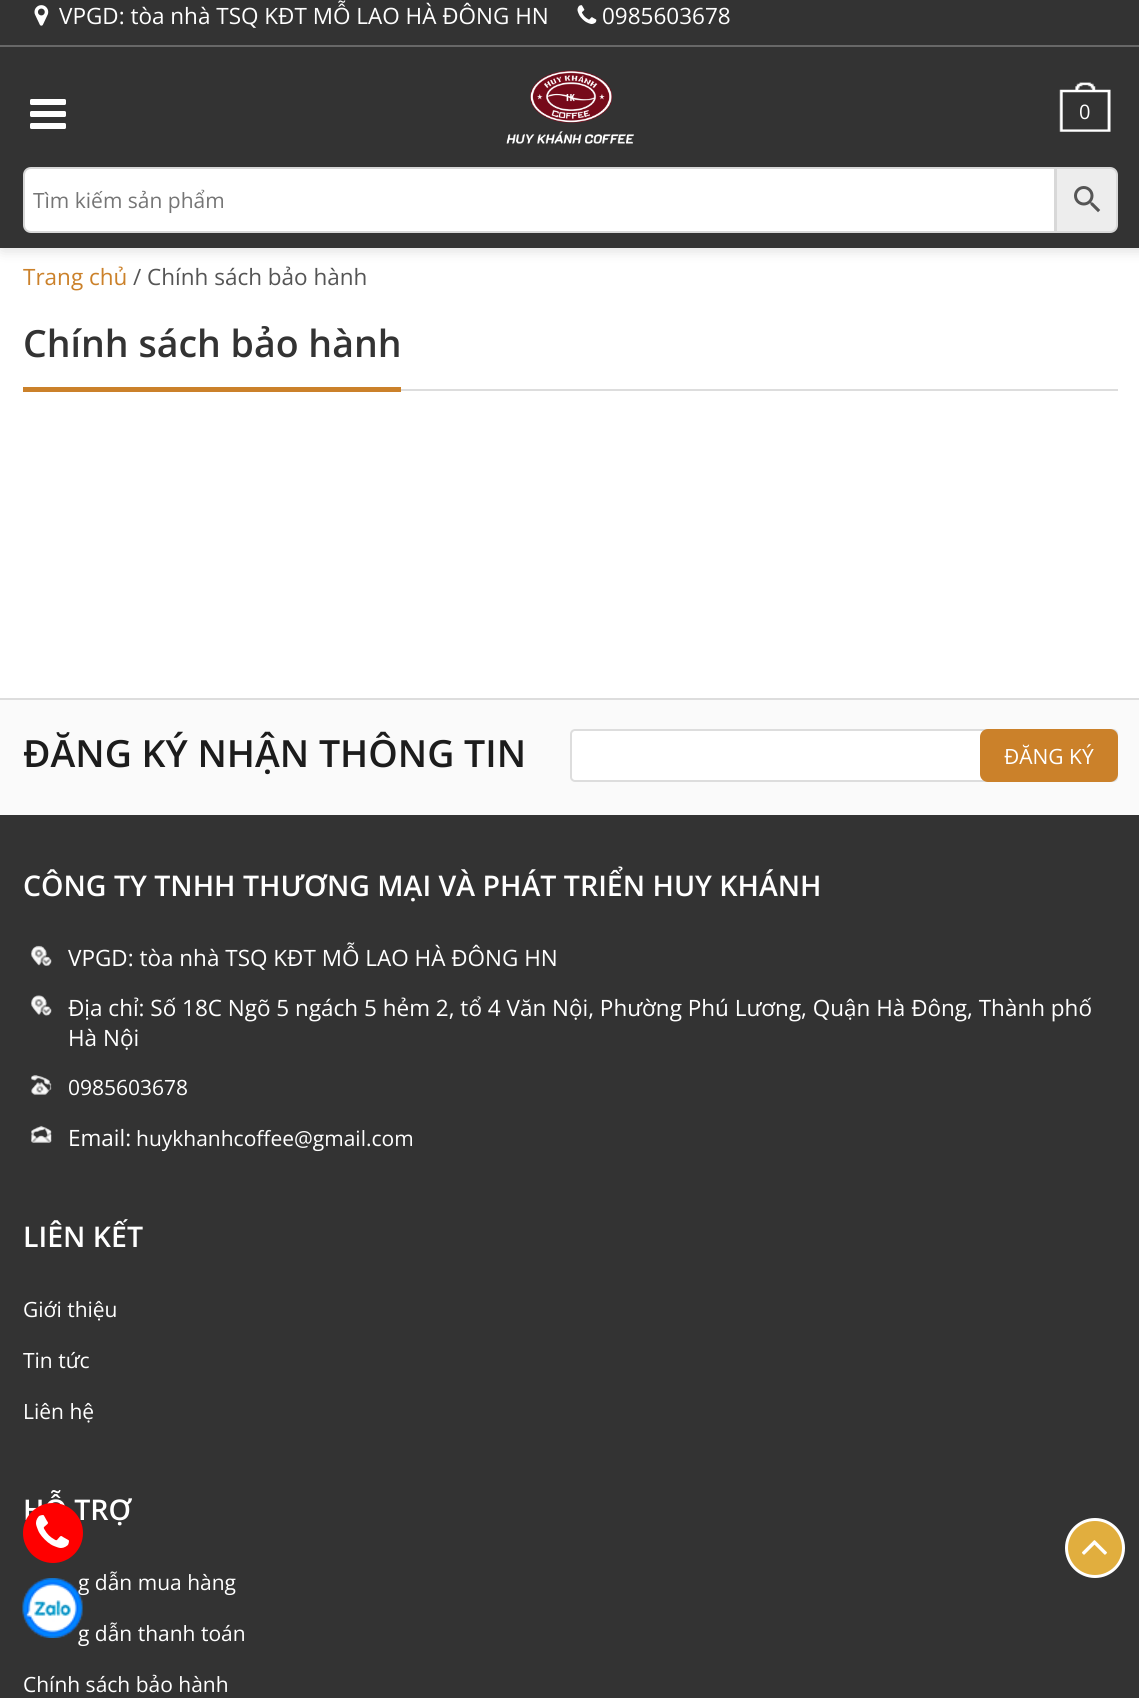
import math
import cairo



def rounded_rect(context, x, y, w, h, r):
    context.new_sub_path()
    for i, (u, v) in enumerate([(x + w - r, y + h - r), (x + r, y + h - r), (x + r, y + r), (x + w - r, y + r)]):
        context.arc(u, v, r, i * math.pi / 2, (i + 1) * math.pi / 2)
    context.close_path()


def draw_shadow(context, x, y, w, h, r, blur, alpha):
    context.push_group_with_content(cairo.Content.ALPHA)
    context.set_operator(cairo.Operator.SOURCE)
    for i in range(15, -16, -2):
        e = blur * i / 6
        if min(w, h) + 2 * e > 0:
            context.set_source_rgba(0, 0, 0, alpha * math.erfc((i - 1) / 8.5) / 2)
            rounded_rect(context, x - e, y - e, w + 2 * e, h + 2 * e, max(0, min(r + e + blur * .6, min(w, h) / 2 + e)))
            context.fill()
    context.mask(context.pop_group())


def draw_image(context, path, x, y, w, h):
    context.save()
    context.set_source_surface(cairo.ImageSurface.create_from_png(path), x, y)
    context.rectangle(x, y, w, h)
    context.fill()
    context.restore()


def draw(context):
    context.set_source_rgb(1, 1, 1)
    context.paint()
    context.set_source_rgb(0, 0, 0)
    draw_shadow(context, 2, -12, 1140, 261, 0, 7.5, 0.16)
    context.set_source_rgb(51 / 255, 51 / 255, 51 / 255)
    context.rectangle(0, 0, 1139, 45)
    context.fill()
    context.set_source_rgb(104 / 255, 104 / 255, 104 / 255)
    context.rectangle(0, 45, 1139, 2)
    context.fill()
    draw_image(context, "images/1.png", 34, 5, 15, 21)
    draw_image(context, "images/2.png", 577, 5, 20, 19)
    context.set_source_rgb(51 / 255, 51 / 255, 51 / 255)
    context.rectangle(0, 47, 1139, 201)
    context.fill()
    draw_image(context, "images/3.png", 30, 99, 36, 30)
    draw_image(context, "images/4.png", 506, 70, 128, 74)
    draw_image(context, "images/5.png", 1059, 82, 52, 50)
    context.set_source_rgb(237 / 255, 237 / 255, 237 / 255)
    context.new_path()
    context.move_to(1056, 168)
    context.line_to(1110, 168)
    context.curve_to(1114, 168, 1117, 171, 1117, 175)
    context.line_to(1117, 225)
    context.curve_to(1117, 229, 1114, 232, 1110, 232)
    context.line_to(1056, 232)
    context.close_path()
    context.fill_preserve()
    context.set_source_rgb(216 / 255, 216 / 255, 216 / 255)
    context.stroke()
    context.set_source_rgb(1, 1, 1)
    context.new_path()
    context.move_to(31, 168)
    context.line_to(1055, 168)
    context.line_to(1055, 232)
    context.line_to(31, 232)
    context.curve_to(27, 232, 24, 229, 24, 225)
    context.line_to(24, 175)
    context.curve_to(24, 171, 27, 168, 31, 168)
    context.close_path()
    context.fill_preserve()
    context.set_source_rgb(216 / 255, 216 / 255, 216 / 255)
    context.stroke()
    draw_image(context, "images/6.png", 1074, 186, 27, 27)
    context.set_source_rgb(221 / 255, 221 / 255, 221 / 255)
    context.rectangle(401, 389, 717, 2)
    context.fill()
    context.set_source_rgb(203 / 255, 129 / 255, 42 / 255)
    context.rectangle(23, 387, 378, 5)
    context.fill()
    context.set_source_rgb(250 / 255, 250 / 255, 250 / 255)
    context.rectangle(0, 700, 1139, 115)
    context.fill()
    context.set_source_rgb(221 / 255, 221 / 255, 221 / 255)
    context.rectangle(0, 698, 1139, 2)
    context.fill()
    context.set_source_rgb(1, 1, 1)
    rounded_rect(context, 571, 730, 546, 51, 4)
    context.fill_preserve()
    context.set_source_rgb(221 / 255, 221 / 255, 221 / 255)
    context.stroke()
    context.set_source_rgb(203 / 255, 129 / 255, 42 / 255)
    rounded_rect(context, 981, 730, 136, 51, 7)
    context.fill_preserve()
    context.stroke()
    context.set_source_rgb(51 / 255, 51 / 255, 51 / 255)
    context.rectangle(0, 815, 1139, 883)
    context.fill()
    draw_image(context, "images/7.png", 31, 945, 21, 21)
    draw_image(context, "images/8.png", 31, 995, 21, 21)
    draw_image(context, "images/9.png", 31, 1075, 21, 20)
    draw_image(context, "images/10.png", 31, 1125, 21, 18)
    context.set_source_rgb(225 / 255, 174 / 255, 62 / 255)
    context.arc(1095, 1548, 28.5, 0, 2 * math.pi)
    context.fill_preserve()
    context.set_source_rgb(1, 1, 1)
    context.set_line_width(3)
    context.stroke()
    draw_image(context, "images/13.png", 1082, 1540, 25, 15)
    context.select_font_face("Open Sans")
    context.set_font_size(22.5)
    context.move_to(59, 24)
    context.show_text("VPGD: tòa nhà TSQ KĐT MỖ LAO HÀ ĐÔNG HN")
    context.move_to(602, 24)
    context.show_text("0985603678")
    context.set_font_size(20)
    context.move_to(1079, 119)
    context.show_text("0")
    context.set_font_size(21)
    context.set_source_rgb(117 / 255, 117 / 255, 117 / 255)
    context.move_to(33, 208)
    context.show_text("Tìm kiếm sản phẩm")
    context.set_font_size(22.5)
    context.set_source_rgb(203 / 255, 129 / 255, 42 / 255)
    context.move_to(23, 285)
    context.show_text("Trang chủ")
    context.set_source_rgb(85 / 255, 85 / 255, 85 / 255)
    context.move_to(133, 285)
    context.show_text("/ Chính sách bảo hành")
    context.select_font_face("Open Sans SemiBold")
    context.set_font_size(37.5)
    context.set_source_rgb(51 / 255, 51 / 255, 51 / 255)
    context.move_to(23, 357)
    context.show_text("Chính sách bảo hành")
    context.set_source_rgb(28 / 255, 28 / 255, 28 / 255)
    context.move_to(23, 767)
    context.show_text("ĐĂNG KÝ NHẬN THÔNG TIN")
    context.select_font_face("Open Sans")
    context.set_font_size(21)
    context.set_source_rgb(1, 1, 1)
    context.move_to(1004, 764)
    context.show_text("ĐĂNG KÝ")
    context.select_font_face("Open Sans SemiBold")
    context.set_font_size(28.5)
    context.move_to(23, 896)
    context.show_text("CÔNG TY TNHH THƯƠNG MẠI VÀ PHÁT TRIỂN HUY KHÁNH")
    context.select_font_face("Open Sans")
    context.set_font_size(22.5)
    context.move_to(68, 966)
    context.show_text("VPGD: tòa nhà TSQ KĐT MỖ LAO HÀ ĐÔNG HN")
    context.move_to(68, 1016)
    context.show_text("Địa chỉ: Số 18C Ngõ 5 ngách 5 hẻm 2, tổ 4 Văn Nội, Phường Phú Lương, Quận Hà Đông, Thành phố")
    context.move_to(68, 1046)
    context.show_text("Hà Nội")
    context.set_font_size(21)
    context.move_to(68, 1095)
    context.show_text("0985603678")
    context.set_font_size(22.5)
    context.move_to(68, 1146)
    context.show_text("Email:")
    context.set_font_size(21)
    context.move_to(136, 1146)
    context.show_text("huykhanhcoffee@gmail.com")
    context.select_font_face("Open Sans SemiBold")
    context.set_font_size(28.5)
    context.move_to(23, 1247)
    context.show_text("LIÊN KẾT")
    context.select_font_face("Open Sans")
    context.set_font_size(21)
    context.move_to(23, 1317)
    context.show_text("Giới thiệu")
    context.move_to(23, 1368)
    context.show_text("Tin tức")
    context.move_to(23, 1419)
    context.show_text("Liên hệ")
    context.select_font_face("Open Sans SemiBold")
    context.set_font_size(28.5)
    context.move_to(23, 1520)
    context.show_text("HỖ TRỢ")
    context.select_font_face("Open Sans")
    context.set_font_size(21)
    context.move_to(78, 1590)
    context.show_text("g dẫn mua hàng")
    context.move_to(78, 1641)
    context.show_text("g dẫn thanh toán")
    context.move_to(23, 1692)
    context.show_text("Chính sách bảo hành")
    context.set_source_rgb(1, 0, 0)
    context.new_path()
    context.arc(53, 1533, 30, 0, 2 * math.pi)
    context.fill()
    draw_image(context, "images/11.png", 36, 1515, 33, 33)
    draw_image(context, "images/12.png", 22, 1578, 61, 60)


surface = cairo.ImageSurface(cairo.Format.RGB24, 1139, 1698)
context = cairo.Context(surface)
options = cairo.FontOptions()
options.set_hint_metrics(cairo.HintMetrics.OFF)
options.set_hint_style(cairo.HintStyle.NONE)
context.set_font_options(options)
context.set_miter_limit(4)
draw(context)
surface.write_to_png("out.png")
